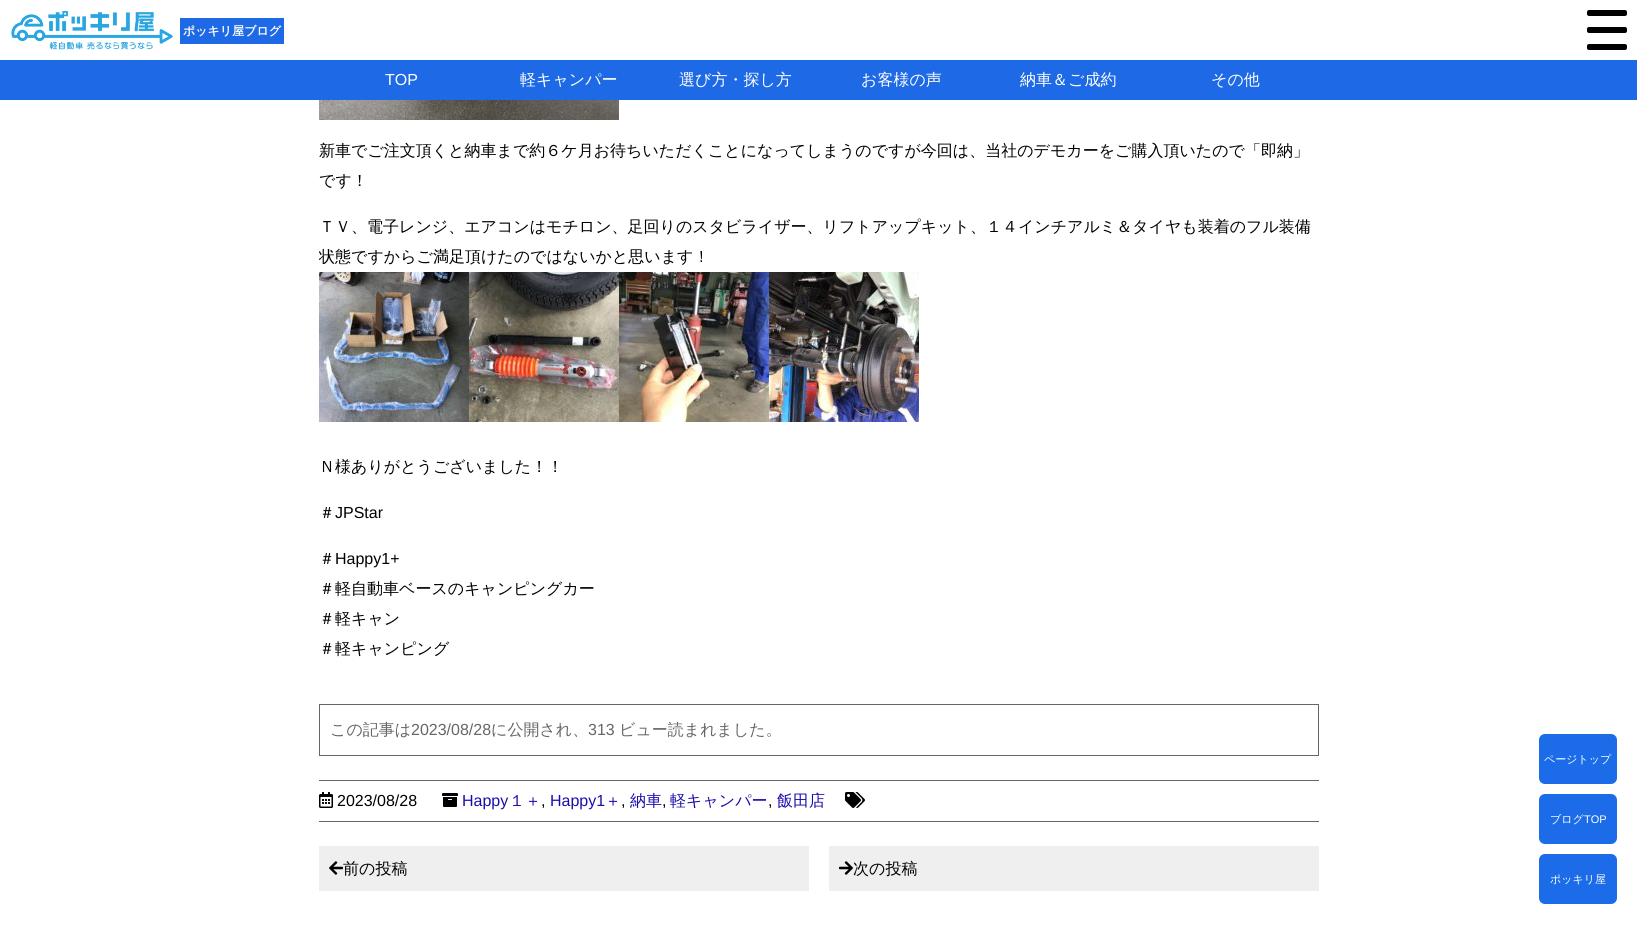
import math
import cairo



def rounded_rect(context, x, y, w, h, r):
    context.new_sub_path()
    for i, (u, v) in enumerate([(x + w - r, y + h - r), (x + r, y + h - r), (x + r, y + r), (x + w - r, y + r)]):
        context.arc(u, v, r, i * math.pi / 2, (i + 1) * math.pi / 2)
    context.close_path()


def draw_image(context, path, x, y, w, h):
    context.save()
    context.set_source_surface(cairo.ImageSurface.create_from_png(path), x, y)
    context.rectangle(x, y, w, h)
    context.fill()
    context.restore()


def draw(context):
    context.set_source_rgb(1, 1, 1)
    context.paint()
    draw_image(context, "images/1.png", 11, 10, 162, 40)
    context.set_source_rgb(30 / 255, 105 / 255, 230 / 255)
    context.rectangle(180, 18, 104, 26)
    context.fill()
    context.set_source_rgb(0, 0, 0)
    rounded_rect(context, 1587, 10, 40, 6, 2)
    context.fill()
    rounded_rect(context, 1587, 27, 40, 6, 2)
    context.fill()
    rounded_rect(context, 1587, 44, 40, 6, 2)
    context.fill()
    context.set_source_rgb(30 / 255, 105 / 255, 230 / 255)
    context.rectangle(0, 60, 1637, 40)
    context.fill()
    draw_image(context, "images/2.png", 319, 100, 300, 20)
    draw_image(context, "images/3.png", 319, 272, 150, 150)
    draw_image(context, "images/4.png", 469, 272, 150, 150)
    draw_image(context, "images/5.png", 619, 272, 150, 150)
    draw_image(context, "images/6.png", 769, 272, 150, 150)
    context.rectangle(319.5, 704.5, 999, 51)
    context.set_source_rgb(102 / 255, 102 / 255, 102 / 255)
    context.set_line_width(1)
    context.stroke()
    context.rectangle(319, 780, 1000, 1)
    context.fill()
    context.rectangle(319, 821, 1000, 1)
    context.fill()
    draw_image(context, "images/7.png", 319, 792, 14, 16)
    draw_image(context, "images/8.png", 442, 793, 16, 14)
    draw_image(context, "images/9.png", 845, 792, 20, 16)
    context.set_source_rgb(239 / 255, 239 / 255, 239 / 255)
    context.rectangle(319, 846, 490, 45)
    context.fill()
    draw_image(context, "images/10.png", 329, 861, 14, 14)
    context.rectangle(829, 846, 490, 45)
    context.fill()
    draw_image(context, "images/11.png", 839, 861, 14, 14)
    context.set_source_rgb(28 / 255, 108 / 255, 233 / 255)
    rounded_rect(context, 1539, 734, 78, 50, 6)
    context.fill()
    rounded_rect(context, 1539, 794, 78, 50, 6)
    context.fill()
    rounded_rect(context, 1539, 854, 78, 50, 6)
    context.fill()
    context.select_font_face("WenQuanYi Zen Hei", cairo.FontSlant.NORMAL, cairo.FontWeight.BOLD)
    context.set_font_size(12)
    context.set_source_rgb(1, 1, 1)
    context.move_to(183, 35)
    context.show_text("ポッキリ屋ブログ")
    context.select_font_face("Liberation Sans")
    context.set_font_size(16)
    context.move_to(385, 85)
    context.show_text("TOP")
    context.select_font_face("WenQuanYi Zen Hei Medium")
    context.move_to(520, 85)
    context.show_text("軽キャンパー")
    context.move_to(679, 85)
    context.show_text("選び方・探し方")
    context.move_to(861, 85)
    context.show_text("お客様の声")
    context.move_to(1020, 85)
    context.show_text("納車＆ご成約")
    context.move_to(1211, 85)
    context.show_text("その他")
    context.set_source_rgb(0, 0, 0)
    context.move_to(319, 156)
    context.show_text("新車でご注文頂くと納車まで約６ケ月お待ちいただくことになってしまうのですが今回は、当社のデモカーをご購入頂いたので「即納」")
    context.move_to(319, 186)
    context.show_text("です！")
    context.move_to(319, 232)
    context.show_text("ＴＶ、電子レンジ、エアコンはモチロン、足回りのスタビライザー、リフトアップキット、１４インチアルミ＆タイヤも装着のフル装備")
    context.save()
    context.rectangle(319, 0, 1000, 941)
    context.clip()
    context.move_to(319, 262)
    context.show_text("状態ですからご満足頂けたのではないかと思います！")
    context.restore()
    context.move_to(319, 472)
    context.show_text("Ｎ様ありがとうございました！！")
    context.move_to(319, 518)
    context.show_text("＃")
    context.select_font_face("Liberation Sans")
    context.move_to(335, 518)
    context.show_text("JPStar")
    context.select_font_face("WenQuanYi Zen Hei Medium")
    context.move_to(319, 564)
    context.show_text("＃")
    context.select_font_face("Liberation Sans")
    context.move_to(335, 564)
    context.show_text("Happy1+")
    context.select_font_face("WenQuanYi Zen Hei Medium")
    context.move_to(319, 594)
    context.show_text("＃軽自動車ベースのキャンピングカー")
    context.move_to(319, 624)
    context.show_text("＃軽キャン")
    context.move_to(319, 654)
    context.show_text("＃軽キャンピング")
    context.set_source_rgb(102 / 255, 102 / 255, 102 / 255)
    context.move_to(330, 735)
    context.show_text("この記事は")
    context.select_font_face("Liberation Sans")
    context.move_to(411, 735)
    context.show_text("2023/08/28")
    context.select_font_face("WenQuanYi Zen Hei Medium")
    context.move_to(491, 735)
    context.show_text("に公開され、")
    context.select_font_face("Liberation Sans")
    context.move_to(588, 735)
    context.show_text("313")
    context.select_font_face("WenQuanYi Zen Hei Medium")
    context.move_to(619, 735)
    context.show_text("ビュー読まれました。")
    context.select_font_face("Liberation Sans")
    context.set_source_rgb(0, 0, 0)
    context.move_to(337, 806)
    context.show_text("2023/08/28")
    context.set_source_rgb(26 / 255, 13 / 255, 171 / 255)
    context.move_to(462, 806)
    context.show_text("Happy")
    context.select_font_face("WenQuanYi Zen Hei Medium")
    context.move_to(509, 806)
    context.show_text("１＋")
    context.select_font_face("Liberation Sans")
    context.move_to(550, 806)
    context.show_text("Happy1")
    context.select_font_face("WenQuanYi Zen Hei Medium")
    context.move_to(605, 806)
    context.show_text("＋")
    context.move_to(630, 806)
    context.show_text("納車")
    context.move_to(670, 806)
    context.show_text("軽キャンパー")
    context.move_to(777, 806)
    context.show_text("飯田店")
    context.select_font_face("Liberation Sans")
    context.set_source_rgb(0, 0, 0)
    context.move_to(541, 806)
    context.show_text(",")
    context.move_to(621, 806)
    context.show_text(",")
    context.move_to(662, 806)
    context.show_text(",")
    context.move_to(768, 806)
    context.show_text(",")
    context.select_font_face("WenQuanYi Zen Hei Medium")
    context.move_to(343, 874)
    context.show_text("前の投稿")
    context.move_to(853, 874)
    context.show_text("次の投稿")
    context.set_font_size(11)
    context.set_source_rgb(1, 1, 1)
    context.move_to(1544, 763)
    context.show_text("ページトップ")
    context.move_to(1550, 823)
    context.show_text("ブログ")
    context.select_font_face("Liberation Sans")
    context.move_to(1584, 823)
    context.show_text("TOP")
    context.select_font_face("WenQuanYi Zen Hei Medium")
    context.move_to(1550, 883)
    context.show_text("ポッキリ屋")


surface = cairo.ImageSurface(cairo.Format.RGB24, 1637, 934)
context = cairo.Context(surface)
options = cairo.FontOptions()
options.set_hint_metrics(cairo.HintMetrics.OFF)
options.set_hint_style(cairo.HintStyle.NONE)
context.set_font_options(options)
context.set_miter_limit(4)
draw(context)
surface.write_to_png("out.png")
